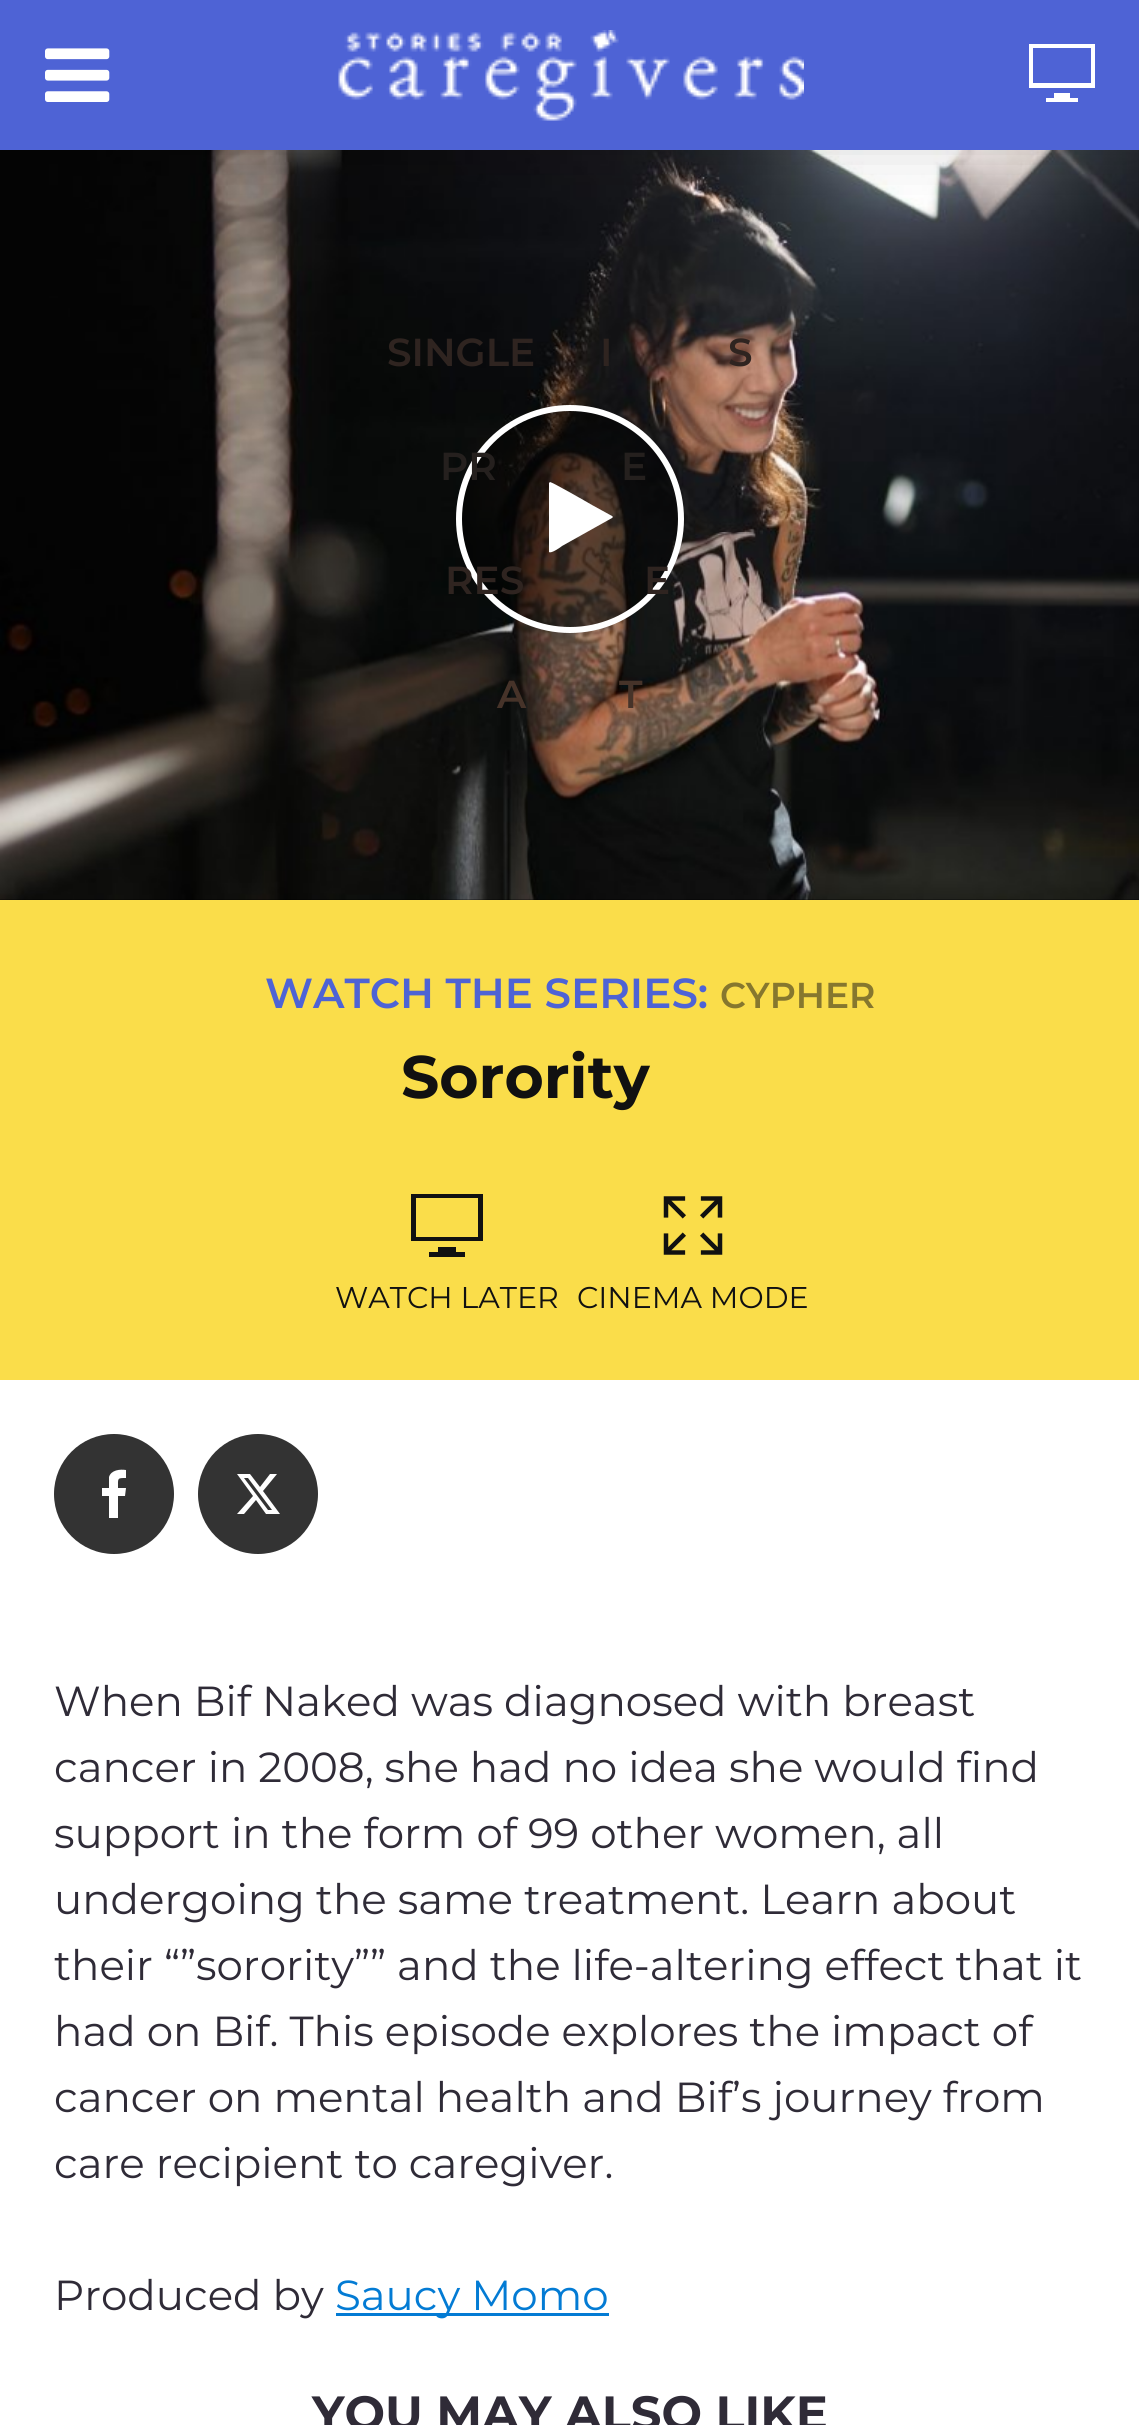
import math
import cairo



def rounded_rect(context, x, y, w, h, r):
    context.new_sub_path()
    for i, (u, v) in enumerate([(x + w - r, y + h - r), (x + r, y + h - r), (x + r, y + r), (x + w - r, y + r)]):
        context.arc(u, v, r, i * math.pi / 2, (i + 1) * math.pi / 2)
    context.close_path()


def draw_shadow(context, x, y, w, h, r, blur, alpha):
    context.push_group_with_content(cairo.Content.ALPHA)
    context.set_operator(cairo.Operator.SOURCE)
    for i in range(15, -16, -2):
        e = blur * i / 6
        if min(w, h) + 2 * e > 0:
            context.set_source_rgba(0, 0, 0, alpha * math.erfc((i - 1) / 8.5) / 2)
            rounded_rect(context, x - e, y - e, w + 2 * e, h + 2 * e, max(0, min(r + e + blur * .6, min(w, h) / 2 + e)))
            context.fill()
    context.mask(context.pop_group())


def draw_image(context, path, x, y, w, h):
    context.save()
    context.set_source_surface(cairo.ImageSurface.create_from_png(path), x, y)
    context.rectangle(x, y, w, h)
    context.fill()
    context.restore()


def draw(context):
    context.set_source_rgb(1, 1, 1)
    context.paint()
    context.set_source_rgb(0, 0, 0)
    context.rectangle(0, 150, 1139, 750)
    context.fill()
    draw_image(context, "images/3.png", 0, 150, 1139, 750)
    context.set_source_rgb(0, 0, 0)
    draw_shadow(context, 0, 0, 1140, 150, 0, 30, 0.15)
    context.set_source_rgb(78 / 255, 99 / 255, 213 / 255)
    context.rectangle(0, 0, 1139, 150)
    context.fill()
    draw_image(context, "images/1.png", 338, 30, 466, 91)
    context.set_source_rgb(1, 1, 1)
    context.new_path()
    context.move_to(1029, 88)
    context.line_to(1095, 88)
    context.line_to(1095, 44)
    context.line_to(1029, 44)
    context.close_path()
    context.move_to(1033, 48)
    context.line_to(1091, 48)
    context.line_to(1091, 83)
    context.line_to(1033, 83)
    context.close_path()
    context.move_to(1054, 93)
    context.line_to(1054, 98)
    context.line_to(1046, 98)
    context.line_to(1046, 102)
    context.line_to(1078, 102)
    context.line_to(1078, 98)
    context.line_to(1070, 98)
    context.line_to(1070, 93)
    context.close_path()
    context.fill()
    draw_image(context, "images/2.png", 45, 48, 65, 54)
    context.set_source_rgba(0, 0, 0, 0.5)
    context.arc(570, 519, 111, 0, 2 * math.pi)
    context.fill_preserve()
    context.set_source_rgb(1, 1, 1)
    context.set_line_width(6)
    context.stroke()
    context.new_path()
    context.move_to(612, 518)
    context.line_to(562, 546)
    context.curve_to(561, 547, 551, 554, 549, 552)
    context.line_to(549, 483)
    context.line_to(550, 482)
    context.curve_to(552, 482, 587, 502, 592, 505)
    context.line_to(612, 516)
    context.line_to(613, 517)
    context.close_path()
    context.fill()
    context.set_source_rgb(250 / 255, 221 / 255, 74 / 255)
    context.rectangle(0, 900, 1139, 480)
    context.fill()
    context.set_source_rgb(17 / 255, 17 / 255, 17 / 255)
    context.new_path()
    context.move_to(411, 1241)
    context.line_to(483, 1241)
    context.line_to(483, 1194)
    context.line_to(411, 1194)
    context.close_path()
    context.move_to(416, 1198)
    context.line_to(478, 1198)
    context.line_to(478, 1237)
    context.line_to(416, 1237)
    context.close_path()
    context.move_to(438, 1247)
    context.line_to(438, 1252)
    context.line_to(429, 1252)
    context.line_to(429, 1257)
    context.line_to(465, 1257)
    context.line_to(465, 1252)
    context.line_to(456, 1252)
    context.line_to(456, 1247)
    context.close_path()
    context.fill()
    draw_image(context, "images/4.png", 663, 1196, 60, 59)
    context.set_source_rgb(51 / 255, 51 / 255, 51 / 255)
    context.arc(114, 1494, 60, 0, 2 * math.pi)
    context.fill()
    context.set_source_rgb(1, 1, 1)
    context.new_path()
    context.move_to(118, 1518)
    context.line_to(118, 1496)
    context.line_to(125, 1496)
    context.line_to(126, 1488)
    context.line_to(118, 1488)
    context.curve_to(118, 1478, 117, 1478, 126, 1478)
    context.line_to(126, 1470)
    context.curve_to(120, 1469, 111, 1470, 109, 1477)
    context.line_to(109, 1488)
    context.line_to(102, 1488)
    context.line_to(102, 1496)
    context.line_to(109, 1496)
    context.line_to(109, 1518)
    context.close_path()
    context.fill()
    context.set_source_rgb(51 / 255, 51 / 255, 51 / 255)
    context.arc(258, 1494, 60, 0, 2 * math.pi)
    context.fill()
    context.set_source_rgb(1, 1, 1)
    context.new_path()
    context.move_to(270, 1474)
    context.line_to(277, 1474)
    context.line_to(263, 1491)
    context.line_to(280, 1514)
    context.line_to(266, 1514)
    context.line_to(256, 1500)
    context.line_to(244, 1514)
    context.line_to(237, 1514)
    context.line_to(253, 1496)
    context.line_to(237, 1474)
    context.line_to(250, 1474)
    context.line_to(260, 1487)
    context.close_path()
    context.move_to(268, 1510)
    context.line_to(272, 1510)
    context.line_to(248, 1478)
    context.line_to(244, 1478)
    context.close_path()
    context.fill()
    context.set_source_rgb(3 / 255, 123 / 255, 212 / 255)
    context.rectangle(336, 2313, 273, 3)
    context.fill()
    context.select_font_face("Montserrat SemiBold")
    context.set_font_size(39)
    context.set_source_rgb(47 / 255, 36 / 255, 32 / 255)
    context.move_to(387, 366)
    context.show_text("SINGLE")
    context.move_to(600, 366)
    context.show_text("I")
    context.move_to(728, 366)
    context.show_text("S")
    context.set_source_rgb(37 / 255, 32 / 255, 30 / 255)
    context.move_to(440, 480)
    context.show_text("PR")
    context.move_to(621, 480)
    context.show_text("E")
    context.set_source_rgb(47 / 255, 36 / 255, 32 / 255)
    context.move_to(445, 594)
    context.show_text("RES")
    context.move_to(644, 594)
    context.show_text("E")
    context.set_source_rgb(70 / 255, 51 / 255, 41 / 255)
    context.move_to(497, 708)
    context.show_text("A")
    context.move_to(619, 708)
    context.show_text("T")
    context.set_font_size(42)
    context.set_source_rgb(78 / 255, 99 / 255, 213 / 255)
    context.move_to(265, 1008)
    context.show_text("WATCH THE SERIES:")
    context.set_font_size(36)
    context.set_source_rgb(134 / 255, 119 / 255, 46 / 255)
    context.move_to(720, 1008)
    context.show_text("CYPHER")
    context.select_font_face("Montserrat", cairo.FontSlant.NORMAL, cairo.FontWeight.BOLD)
    context.set_font_size(60)
    context.set_source_rgb(17 / 255, 17 / 255, 17 / 255)
    context.move_to(401, 1098)
    context.show_text("Sorority")
    context.select_font_face("Montserrat")
    context.set_font_size(30)
    context.move_to(335, 1308)
    context.show_text("WATCH LATER")
    context.move_to(577, 1308)
    context.show_text("CINEMA MODE")
    context.set_font_size(42)
    context.set_source_rgb(47 / 255, 43 / 255, 55 / 255)
    context.move_to(54, 1716)
    context.show_text("When Bif Naked was diagnosed with breast")
    context.move_to(54, 1782)
    context.show_text("cancer in 2008, she had no idea she would find")
    context.move_to(54, 1848)
    context.show_text("support in the form of 99 other women, all")
    context.move_to(54, 1914)
    context.show_text("undergoing the same treatment. Learn about")
    context.move_to(54, 1980)
    context.show_text("their “”sorority”” and the life-altering effect that it")
    context.move_to(54, 2046)
    context.show_text("had on Bif. This episode explores the impact of")
    context.move_to(54, 2112)
    context.show_text("cancer on mental health and Bif’s journey from")
    context.move_to(54, 2178)
    context.show_text("care recipient to caregiver.")
    context.move_to(54, 2310)
    context.show_text("Produced by")
    context.set_source_rgb(3 / 255, 123 / 255, 212 / 255)
    context.move_to(335, 2310)
    context.show_text("Saucy Momo")
    context.select_font_face("Montserrat", cairo.FontSlant.NORMAL, cairo.FontWeight.BOLD)
    context.set_font_size(48)
    context.set_source_rgb(47 / 255, 43 / 255, 55 / 255)
    context.move_to(312, 2430)
    context.show_text("YOU MAY ALSO LIKE")


surface = cairo.ImageSurface(cairo.Format.RGB24, 1139, 2425)
context = cairo.Context(surface)
options = cairo.FontOptions()
options.set_hint_metrics(cairo.HintMetrics.OFF)
options.set_hint_style(cairo.HintStyle.NONE)
context.set_font_options(options)
context.set_miter_limit(4)
draw(context)
surface.write_to_png("out.png")
